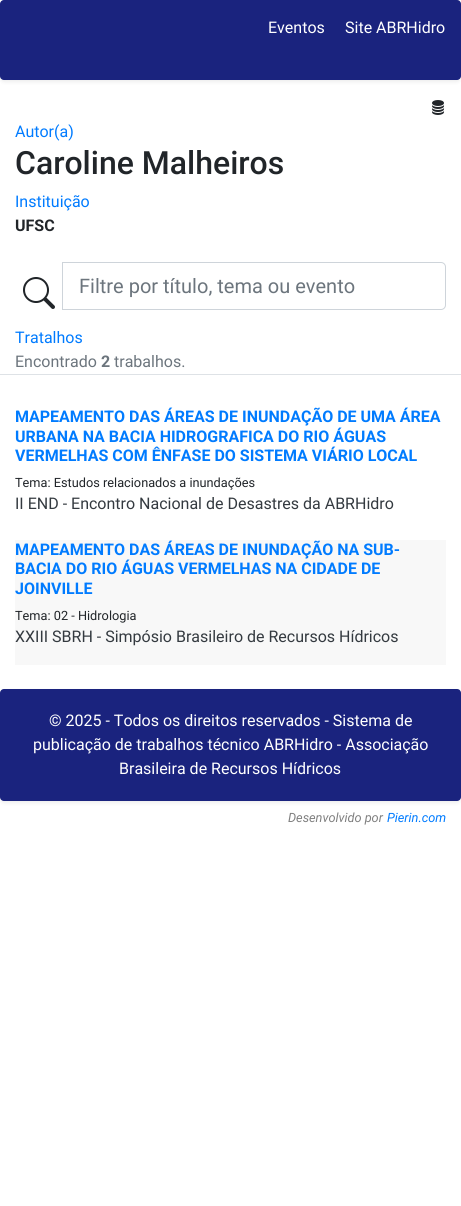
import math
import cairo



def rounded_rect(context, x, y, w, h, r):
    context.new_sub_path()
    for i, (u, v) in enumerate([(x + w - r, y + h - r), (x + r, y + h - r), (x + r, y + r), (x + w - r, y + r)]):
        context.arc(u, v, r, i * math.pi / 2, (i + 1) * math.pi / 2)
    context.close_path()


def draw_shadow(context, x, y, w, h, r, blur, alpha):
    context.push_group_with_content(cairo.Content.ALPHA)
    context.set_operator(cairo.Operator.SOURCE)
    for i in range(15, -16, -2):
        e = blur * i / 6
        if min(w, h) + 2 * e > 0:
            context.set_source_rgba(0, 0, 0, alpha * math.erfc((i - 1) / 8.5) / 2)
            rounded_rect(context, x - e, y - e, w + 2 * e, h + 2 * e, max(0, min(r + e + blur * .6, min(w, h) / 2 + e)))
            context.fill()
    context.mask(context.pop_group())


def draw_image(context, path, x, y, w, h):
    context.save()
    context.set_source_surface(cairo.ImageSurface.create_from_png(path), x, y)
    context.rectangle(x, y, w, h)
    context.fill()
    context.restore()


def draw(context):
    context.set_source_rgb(1, 1, 1)
    context.paint()
    context.set_source_rgb(0, 0, 0)
    draw_shadow(context, 0, 2, 461, 80, 4, 2, 0.07)
    context.set_source_rgb(26 / 255, 35 / 255, 126 / 255)
    rounded_rect(context, 0, 0, 461, 80, 4)
    context.fill()
    draw_image(context, "images/1.png", 432, 100, 13, 15)
    draw_image(context, "images/2.png", 23, 277, 32, 32)
    context.new_path()
    context.move_to(62.5, 262.5)
    context.line_to(441, 262.5)
    context.curve_to(443.5, 262.5, 445.5, 264.5, 445.5, 267)
    context.line_to(445.5, 305)
    context.curve_to(445.5, 307.5, 443.5, 309.5, 441, 309.5)
    context.line_to(62.5, 309.5)
    context.close_path()
    context.set_source_rgb(206 / 255, 212 / 255, 218 / 255)
    context.set_line_width(1)
    context.stroke()
    context.set_source_rgb(222 / 255, 226 / 255, 230 / 255)
    context.rectangle(0, 374, 461, 1)
    context.fill()
    context.set_source_rgb(248 / 255, 248 / 255, 248 / 255)
    context.rectangle(15, 540, 431, 125)
    context.fill()
    context.set_source_rgb(0, 0, 0)
    draw_shadow(context, 0, 691, 461, 112, 4, 2, 0.07)
    context.set_source_rgb(26 / 255, 35 / 255, 126 / 255)
    rounded_rect(context, 0, 689, 461, 112, 4)
    context.fill()
    context.select_font_face("Roboto")
    context.set_font_size(16)
    context.set_source_rgb(1, 1, 1)
    context.move_to(268, 33)
    context.show_text("Eventos")
    context.move_to(345, 33)
    context.show_text("Site ABRHidro")
    context.set_source_rgb(0, 123 / 255, 1)
    context.move_to(15, 137)
    context.show_text("Autor(a)")
    context.select_font_face("Roboto Medium")
    context.set_font_size(32)
    context.set_source_rgb(33 / 255, 37 / 255, 41 / 255)
    context.move_to(15, 174)
    context.show_text("Caroline Malheiros")
    context.select_font_face("Roboto")
    context.set_font_size(16)
    context.set_source_rgb(0, 123 / 255, 1)
    context.move_to(15, 207)
    context.show_text("Instituição")
    context.select_font_face("Roboto", cairo.FontSlant.NORMAL, cairo.FontWeight.BOLD)
    context.set_source_rgb(33 / 255, 37 / 255, 41 / 255)
    context.move_to(15, 231)
    context.show_text("UFSC")
    context.select_font_face("Roboto")
    context.set_font_size(20)
    context.set_source_rgb(108 / 255, 117 / 255, 125 / 255)
    context.move_to(79, 293)
    context.show_text("Filtre por título, tema ou evento")
    context.set_font_size(16)
    context.set_source_rgb(0, 123 / 255, 1)
    context.move_to(15, 343)
    context.show_text("Tratalhos")
    context.set_source_rgb(108 / 255, 117 / 255, 125 / 255)
    context.move_to(15, 367)
    context.show_text("Encontrado")
    context.select_font_face("Roboto", cairo.FontSlant.NORMAL, cairo.FontWeight.BOLD)
    context.move_to(101, 367)
    context.show_text("2")
    context.select_font_face("Roboto")
    context.move_to(114, 367)
    context.show_text("trabalhos.")
    context.select_font_face("Roboto", cairo.FontSlant.NORMAL, cairo.FontWeight.BOLD)
    context.set_source_rgb(0, 123 / 255, 1)
    context.move_to(15, 422)
    context.show_text("MAPEAMENTO DAS ÁREAS DE INUNDAÇÃO DE UMA ÁREA")
    context.move_to(15, 442)
    context.show_text("URBANA NA BACIA HIDROGRAFICA DO RIO ÁGUAS")
    context.move_to(15, 461)
    context.show_text("VERMELHAS COM ÊNFASE DO SISTEMA VIÁRIO LOCAL")
    context.select_font_face("Roboto")
    context.set_font_size(12.75)
    context.set_source_rgb(33 / 255, 37 / 255, 41 / 255)
    context.move_to(15, 487)
    context.show_text("Tema: Estudos relacionados a inundações")
    context.set_font_size(16)
    context.set_source_rgb(52 / 255, 58 / 255, 64 / 255)
    context.move_to(15, 509)
    context.show_text("II END - Encontro Nacional de Desastres da ABRHidro")
    context.select_font_face("Roboto", cairo.FontSlant.NORMAL, cairo.FontWeight.BOLD)
    context.set_source_rgb(0, 123 / 255, 1)
    context.move_to(15, 555)
    context.show_text("MAPEAMENTO DAS ÁREAS DE INUNDAÇÃO NA SUB-")
    context.move_to(15, 574)
    context.show_text("BACIA DO RIO ÁGUAS VERMELHAS NA CIDADE DE")
    context.move_to(15, 594)
    context.show_text("JOINVILLE")
    context.select_font_face("Roboto")
    context.set_font_size(12.75)
    context.set_source_rgb(33 / 255, 37 / 255, 41 / 255)
    context.move_to(15, 620)
    context.show_text("Tema: 02 - Hidrologia")
    context.set_font_size(16)
    context.set_source_rgb(52 / 255, 58 / 255, 64 / 255)
    context.move_to(15, 642)
    context.show_text("XXIII SBRH - Simpósio Brasileiro de Recursos Hídricos")
    context.set_source_rgb(1, 1, 1)
    context.move_to(49, 726)
    context.show_text("© 2025 - Todos os direitos reservados - Sistema de")
    context.move_to(33, 750)
    context.show_text("publicação de trabalhos técnico ABRHidro - Associação")
    context.move_to(119, 774)
    context.show_text("Brasileira de Recursos Hídricos")
    context.select_font_face("Roboto", cairo.FontSlant.ITALIC)
    context.set_font_size(12.75)
    context.set_source_rgb(128 / 255, 128 / 255, 128 / 255)
    context.move_to(288, 822)
    context.show_text("Desenvolvido por")
    context.set_source_rgb(0, 123 / 255, 1)
    context.move_to(387, 822)
    context.show_text("Pierin.com")


surface = cairo.ImageSurface(cairo.Format.RGB24, 461, 1206)
context = cairo.Context(surface)
options = cairo.FontOptions()
options.set_hint_metrics(cairo.HintMetrics.OFF)
options.set_hint_style(cairo.HintStyle.NONE)
context.set_font_options(options)
context.set_miter_limit(4)
draw(context)
surface.write_to_png("out.png")
